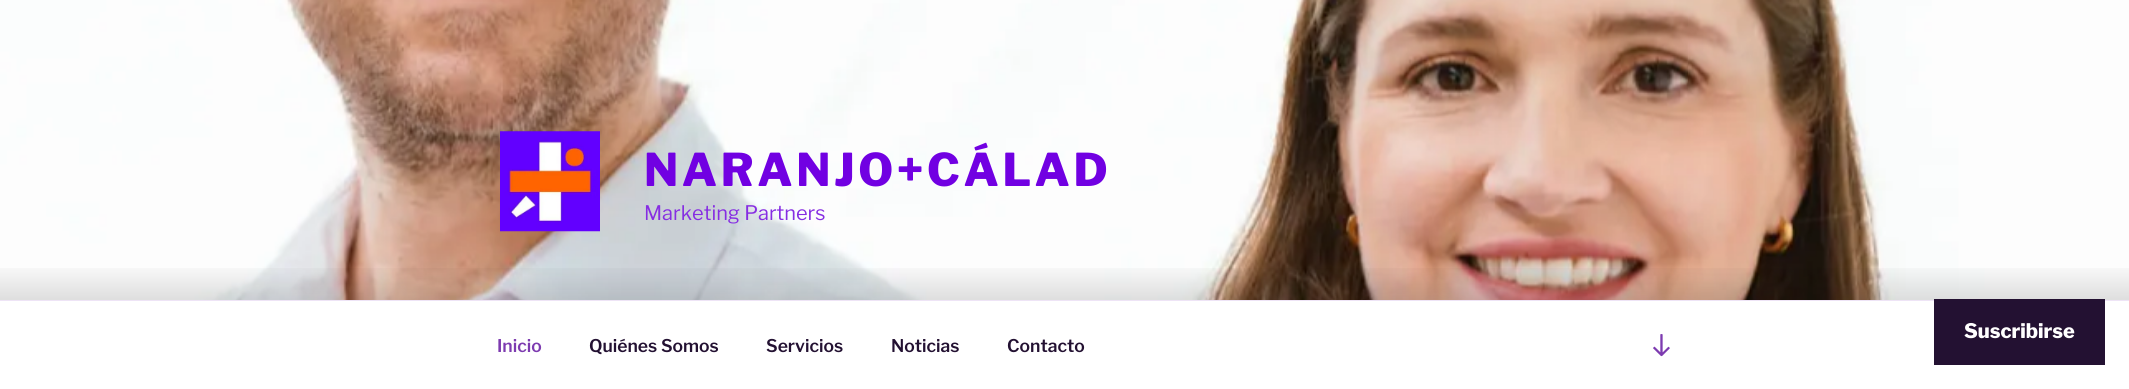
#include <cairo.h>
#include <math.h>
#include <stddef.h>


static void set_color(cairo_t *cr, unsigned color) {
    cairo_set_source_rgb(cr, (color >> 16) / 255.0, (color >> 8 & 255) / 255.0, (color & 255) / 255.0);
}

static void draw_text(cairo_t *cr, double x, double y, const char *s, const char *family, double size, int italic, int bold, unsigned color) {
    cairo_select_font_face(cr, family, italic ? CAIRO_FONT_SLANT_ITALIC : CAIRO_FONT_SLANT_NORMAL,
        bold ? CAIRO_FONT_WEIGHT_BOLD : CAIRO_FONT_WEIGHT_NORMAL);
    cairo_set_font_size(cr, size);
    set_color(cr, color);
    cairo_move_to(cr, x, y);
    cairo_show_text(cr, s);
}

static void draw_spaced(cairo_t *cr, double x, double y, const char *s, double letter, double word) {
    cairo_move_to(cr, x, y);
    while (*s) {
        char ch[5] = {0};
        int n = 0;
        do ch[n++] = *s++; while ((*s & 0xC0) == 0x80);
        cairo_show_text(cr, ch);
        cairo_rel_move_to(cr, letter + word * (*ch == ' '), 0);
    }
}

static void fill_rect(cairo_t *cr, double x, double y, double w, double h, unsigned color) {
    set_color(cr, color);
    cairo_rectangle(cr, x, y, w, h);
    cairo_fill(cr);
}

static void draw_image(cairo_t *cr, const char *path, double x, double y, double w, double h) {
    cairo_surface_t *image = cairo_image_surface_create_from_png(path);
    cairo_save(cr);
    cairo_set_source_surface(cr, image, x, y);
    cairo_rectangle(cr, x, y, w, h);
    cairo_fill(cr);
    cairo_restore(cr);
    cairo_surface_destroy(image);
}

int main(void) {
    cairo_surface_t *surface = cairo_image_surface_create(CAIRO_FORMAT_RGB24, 2129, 389);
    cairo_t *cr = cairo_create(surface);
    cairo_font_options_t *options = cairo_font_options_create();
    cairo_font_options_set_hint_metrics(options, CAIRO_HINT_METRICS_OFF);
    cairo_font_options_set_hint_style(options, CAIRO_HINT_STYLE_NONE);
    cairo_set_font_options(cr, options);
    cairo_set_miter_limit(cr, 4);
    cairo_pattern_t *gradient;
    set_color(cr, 0xFFFFFF);
    cairo_paint(cr);
    draw_image(cr, "assets/img1.png", 0, 0, 2129, 300);
    gradient = cairo_pattern_create_linear(1065, 261, 1065, 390);
    cairo_pattern_add_color_stop_rgba(gradient, 0, 0, 0, 0, 0);
    cairo_pattern_add_color_stop_rgba(gradient, 0.75, 0, 0, 0, 0.3);
    cairo_pattern_add_color_stop_rgba(gradient, 1, 0, 0, 0, 0.3);
    cairo_set_source(cr, gradient);
    cairo_pattern_destroy(gradient);
    cairo_rectangle(cr, 0, 268, 2129, 32);
    cairo_fill(cr);
    draw_image(cr, "assets/img2.png", 500, 131, 100, 101);
    cairo_select_font_face(cr, "Libre Franklin Thin", CAIRO_FONT_SLANT_NORMAL, CAIRO_FONT_WEIGHT_NORMAL);
    cairo_set_font_size(cr, 45);
    set_color(cr, 0x7100E2);
    draw_spaced(cr, 644, 186, "NARANJO+CÁLAD", 3.6, 0);
    draw_text(cr, 644, 220, "Marketing Partners", "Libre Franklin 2 Thin", 20, 0, 0, 0x862DE2);
    fill_rect(cr, 0, 300, 2129, 1, 0xEEE4F6);
    draw_text(cr, 497, 352, "Inicio", "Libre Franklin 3 Thin", 17.5, 0, 0, 0x7D3BB0);
    draw_text(cr, 589, 352, "Quiénes Somos", "Libre Franklin 3 Thin", 17.5, 0, 0, 0x231132);
    draw_text(cr, 766, 352, "Servicios", "Libre Franklin 3 Thin", 17.5, 0, 0, 0x231132);
    draw_text(cr, 891, 352, "Noticias", "Libre Franklin 3 Thin", 17.5, 0, 0, 0x231132);
    draw_text(cr, 1007, 352, "Contacto", "Libre Franklin 3 Thin", 17.5, 0, 0, 0x231132);
    draw_image(cr, "assets/img3.png", 1653, 334, 17, 23);
    fill_rect(cr, 1934, 299, 171, 66, 0x231132);
    draw_text(cr, 1964, 338, "Suscribirse", "Libre Franklin Thin", 20, 0, 0, 0xFFFFFF);
    cairo_surface_write_to_png(surface, "output.png");
    cairo_font_options_destroy(options);
    cairo_destroy(cr);
    cairo_surface_destroy(surface);
    return 0;
}
